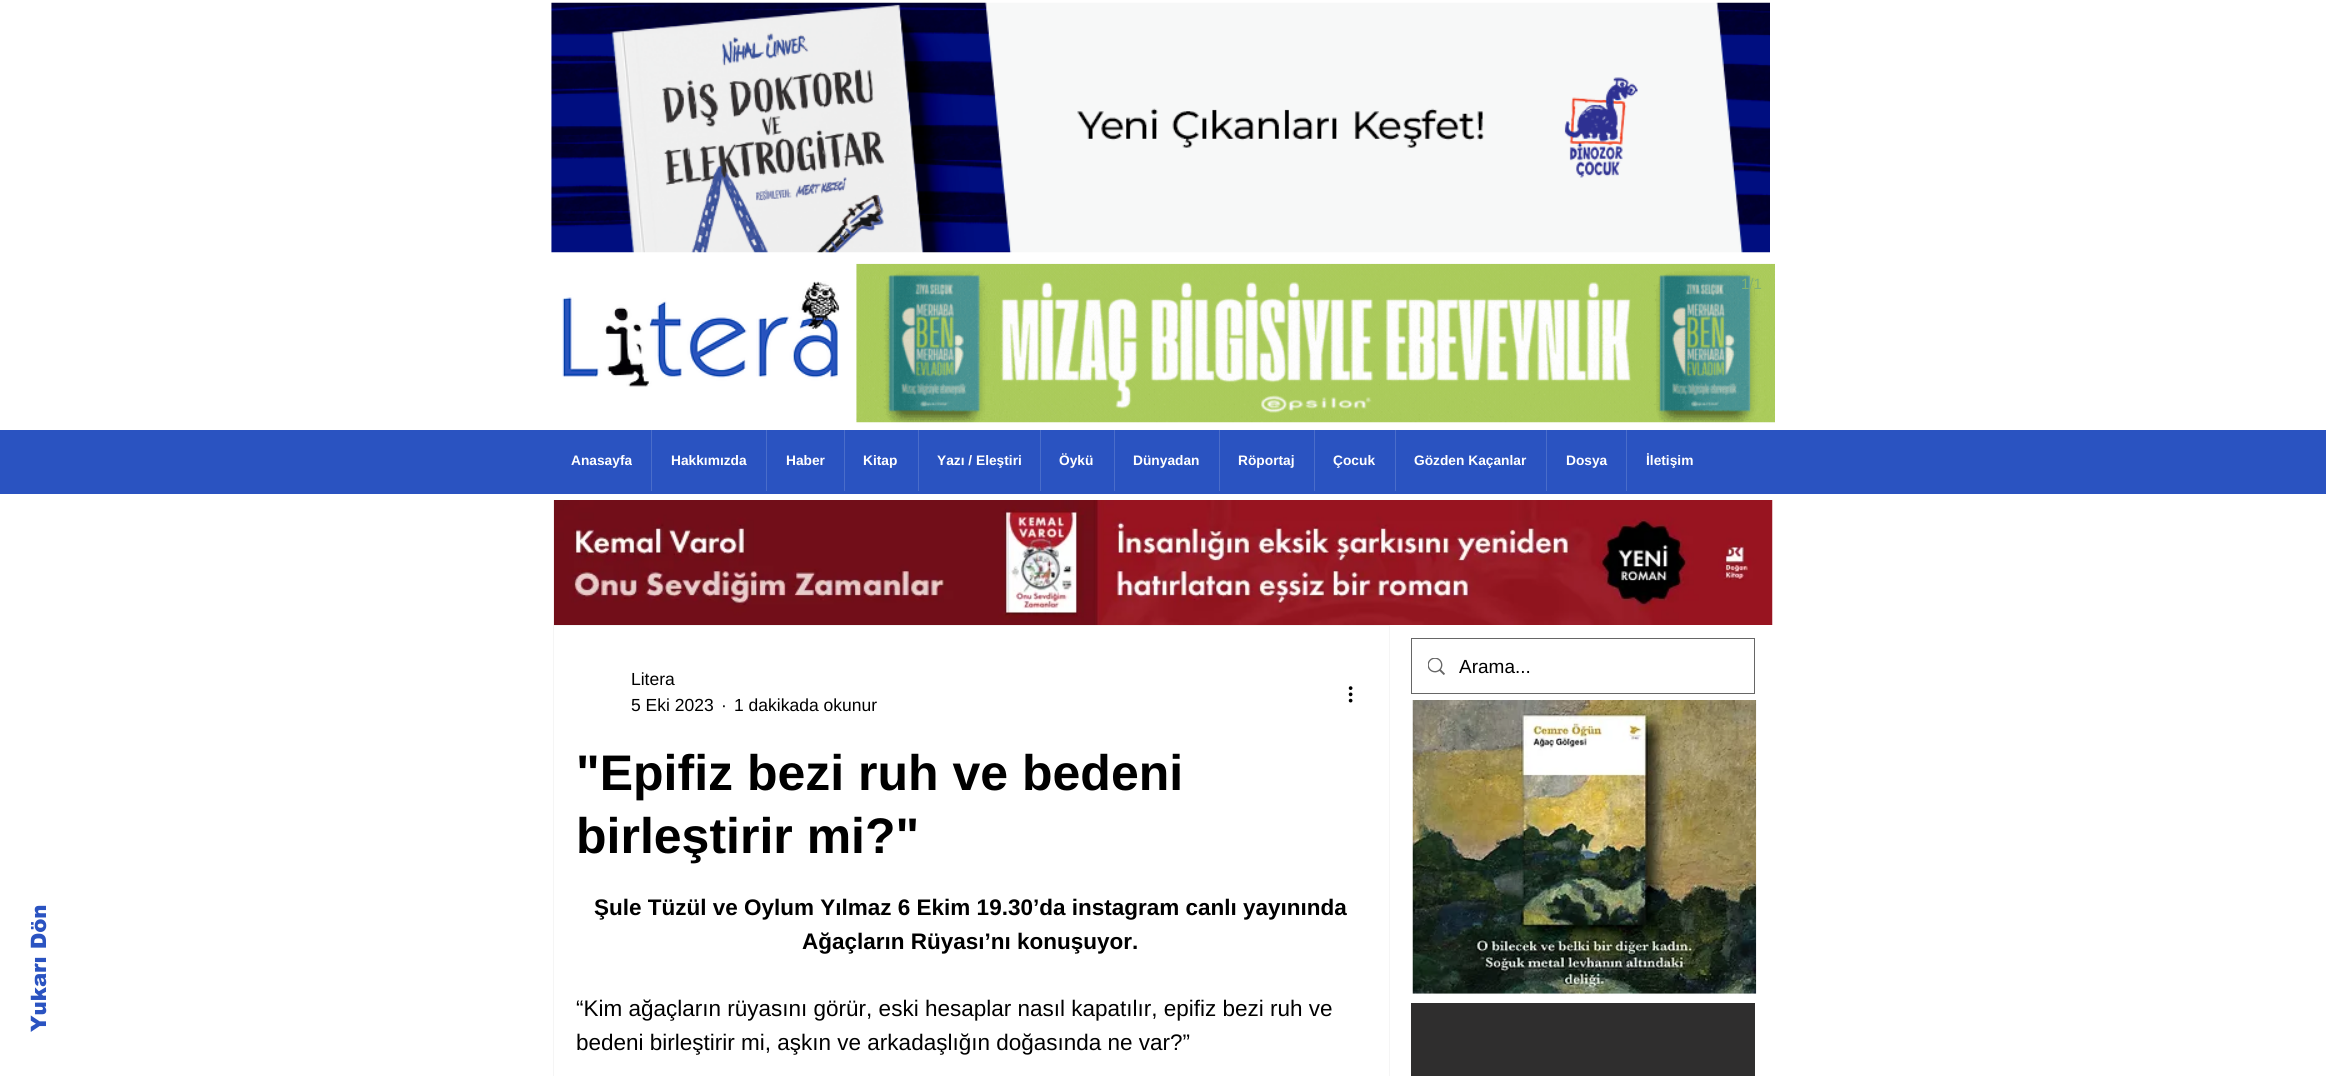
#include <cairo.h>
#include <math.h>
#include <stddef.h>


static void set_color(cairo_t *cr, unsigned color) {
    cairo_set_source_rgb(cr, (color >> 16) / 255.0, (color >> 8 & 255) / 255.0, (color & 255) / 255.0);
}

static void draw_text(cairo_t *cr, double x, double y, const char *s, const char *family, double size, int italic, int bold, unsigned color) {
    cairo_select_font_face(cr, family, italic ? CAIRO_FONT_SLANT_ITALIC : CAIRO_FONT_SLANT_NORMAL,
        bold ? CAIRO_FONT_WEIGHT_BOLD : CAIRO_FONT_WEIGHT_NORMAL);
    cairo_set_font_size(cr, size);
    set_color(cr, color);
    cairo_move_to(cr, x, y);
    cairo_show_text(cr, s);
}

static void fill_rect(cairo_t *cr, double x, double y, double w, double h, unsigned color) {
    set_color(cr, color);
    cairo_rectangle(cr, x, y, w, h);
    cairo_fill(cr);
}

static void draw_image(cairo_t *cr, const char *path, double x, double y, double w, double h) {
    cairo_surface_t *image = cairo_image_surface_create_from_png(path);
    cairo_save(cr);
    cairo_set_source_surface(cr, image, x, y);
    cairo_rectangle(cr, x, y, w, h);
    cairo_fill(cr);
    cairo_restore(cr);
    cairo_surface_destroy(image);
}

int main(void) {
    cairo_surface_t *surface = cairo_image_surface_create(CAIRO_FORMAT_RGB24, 2326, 1076);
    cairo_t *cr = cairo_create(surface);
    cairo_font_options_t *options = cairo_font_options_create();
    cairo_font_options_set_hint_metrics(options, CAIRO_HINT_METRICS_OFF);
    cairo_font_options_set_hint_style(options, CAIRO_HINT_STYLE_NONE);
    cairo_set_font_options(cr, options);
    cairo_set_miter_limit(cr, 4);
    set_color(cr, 0xFFFFFF);
    cairo_paint(cr);
    draw_image(cr, "assets/img1.png", 551, 2, 1219, 251);
    draw_image(cr, "assets/img2.png", 562, 281, 278, 106);
    draw_image(cr, "assets/img3.png", 856, 263, 919, 160);
    draw_text(cr, 1741, 289, "1/1", "Liberation Sans", 15, 0, 0, 0x7FB173);
    fill_rect(cr, 0, 430, 2326, 64, 0x2A53C1);
    draw_text(cr, 571, 465, "Anasayfa", "Liberation Sans", 13.75, 0, 1, 0xFFFFFF);
    fill_rect(cr, 651, 430, 1, 61, 0x4A6DCA);
    draw_text(cr, 671, 465, "Hakkımızda", "Liberation Sans", 13.75, 0, 1, 0xFFFFFF);
    fill_rect(cr, 766, 430, 1, 61, 0x4A6DCA);
    draw_text(cr, 786, 465, "Haber", "Liberation Sans", 13.75, 0, 1, 0xFFFFFF);
    fill_rect(cr, 844, 430, 1, 61, 0x4A6DCA);
    draw_text(cr, 863, 465, "Kitap", "Liberation Sans", 13.75, 0, 1, 0xFFFFFF);
    fill_rect(cr, 918, 430, 1, 61, 0x4A6DCA);
    draw_text(cr, 937, 465, "Yazı / Eleştiri", "Liberation Sans", 13.75, 0, 1, 0xFFFFFF);
    fill_rect(cr, 1040, 430, 1, 61, 0x4A6DCA);
    draw_text(cr, 1059, 465, "Öykü", "Liberation Sans", 13.75, 0, 1, 0xFFFFFF);
    fill_rect(cr, 1114, 430, 1, 61, 0x4A6DCA);
    draw_text(cr, 1133, 465, "Dünyadan", "Liberation Sans", 13.75, 0, 1, 0xFFFFFF);
    fill_rect(cr, 1219, 430, 1, 61, 0x4A6DCA);
    draw_text(cr, 1238, 465, "Röportaj", "Liberation Sans", 13.75, 0, 1, 0xFFFFFF);
    fill_rect(cr, 1314, 430, 1, 61, 0x4A6DCA);
    draw_text(cr, 1333, 465, "Çocuk", "Liberation Sans", 13.75, 0, 1, 0xFFFFFF);
    fill_rect(cr, 1395, 430, 1, 61, 0x4A6DCA);
    draw_text(cr, 1414, 465, "Gözden Kaçanlar", "Liberation Sans", 13.75, 0, 1, 0xFFFFFF);
    fill_rect(cr, 1546, 430, 1, 61, 0x4A6DCA);
    draw_text(cr, 1566, 465, "Dosya", "Liberation Sans", 13.75, 0, 1, 0xFFFFFF);
    fill_rect(cr, 1626, 430, 1, 61, 0x4A6DCA);
    draw_text(cr, 1646, 465, "İletişim", "Liberation Sans", 13.75, 0, 1, 0xFFFFFF);
    draw_image(cr, "assets/img4.png", 553, 500, 1220, 125);
    cairo_rectangle(cr, 1411.5, 638.5, 343, 55);
    set_color(cr, 0x666666);
    cairo_set_line_width(cr, 1);
    cairo_stroke(cr);
    draw_image(cr, "assets/img5.png", 1428, 658, 17, 17);
    draw_text(cr, 1459, 673, "Arama...", "Liberation Sans", 19, 0, 0, 0x000000);
    draw_image(cr, "assets/img6.png", 1412, 700, 345, 294);
    fill_rect(cr, 1411, 1003, 344, 73, 0x2F2E2E);
    cairo_save(cr);
    cairo_translate(cr, 46, 1032);
    cairo_rotate(cr, -90 * M_PI / 180);
    draw_text(cr, 0, 0, "Yukarı Dön", "arial Black", 21.25, 0, 0, 0x2A53C1);
    cairo_restore(cr);
    cairo_rectangle(cr, 553.5, 625.5, 836, 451);
    set_color(cr, 0xF5F5F5);
    cairo_stroke(cr);
    draw_text(cr, 631, 685, "Litera", "Liberation Sans", 17.5, 0, 0, 0x000000);
    draw_text(cr, 631, 711, "5 Eki 2023", "Liberation Sans", 17.5, 0, 0, 0x000000);
    draw_text(cr, 721, 711, "·", "Liberation Sans", 17.5, 0, 0, 0x000000);
    draw_text(cr, 734, 711, "1 dakikada okunur", "Liberation Sans", 17.5, 0, 0, 0x000000);
    draw_image(cr, "assets/img7.png", 1348, 686, 5, 17);
    draw_text(cr, 576, 790, "\"Epifiz bezi ruh ve bedeni", "Liberation Sans", 50, 0, 1, 0x000000);
    draw_text(cr, 576, 853, "birleştirir mi?\"", "Liberation Sans", 50, 0, 1, 0x000000);
    draw_text(cr, 594, 915, "Şule Tüzül ve Oylum Yılmaz 6 Ekim 19.30’da instagram canlı yayınında", "Liberation Sans", 22.5, 0, 1, 0x000000);
    draw_text(cr, 802, 949, "Ağaçların Rüyası’nı konuşuyor.", "Liberation Sans", 22.5, 0, 1, 0x000000);
    draw_text(cr, 576, 1016, "“Kim ağaçların rüyasını görür, eski hesaplar nasıl kapatılır, epifiz bezi ruh ve", "Liberation Sans", 22.5, 0, 0, 0x000000);
    draw_text(cr, 576, 1050, "bedeni birleştirir mi, aşkın ve arkadaşlığın doğasında ne var?”", "Liberation Sans", 22.5, 0, 0, 0x000000);
    cairo_surface_write_to_png(surface, "output.png");
    cairo_font_options_destroy(options);
    cairo_destroy(cr);
    cairo_surface_destroy(surface);
    return 0;
}
